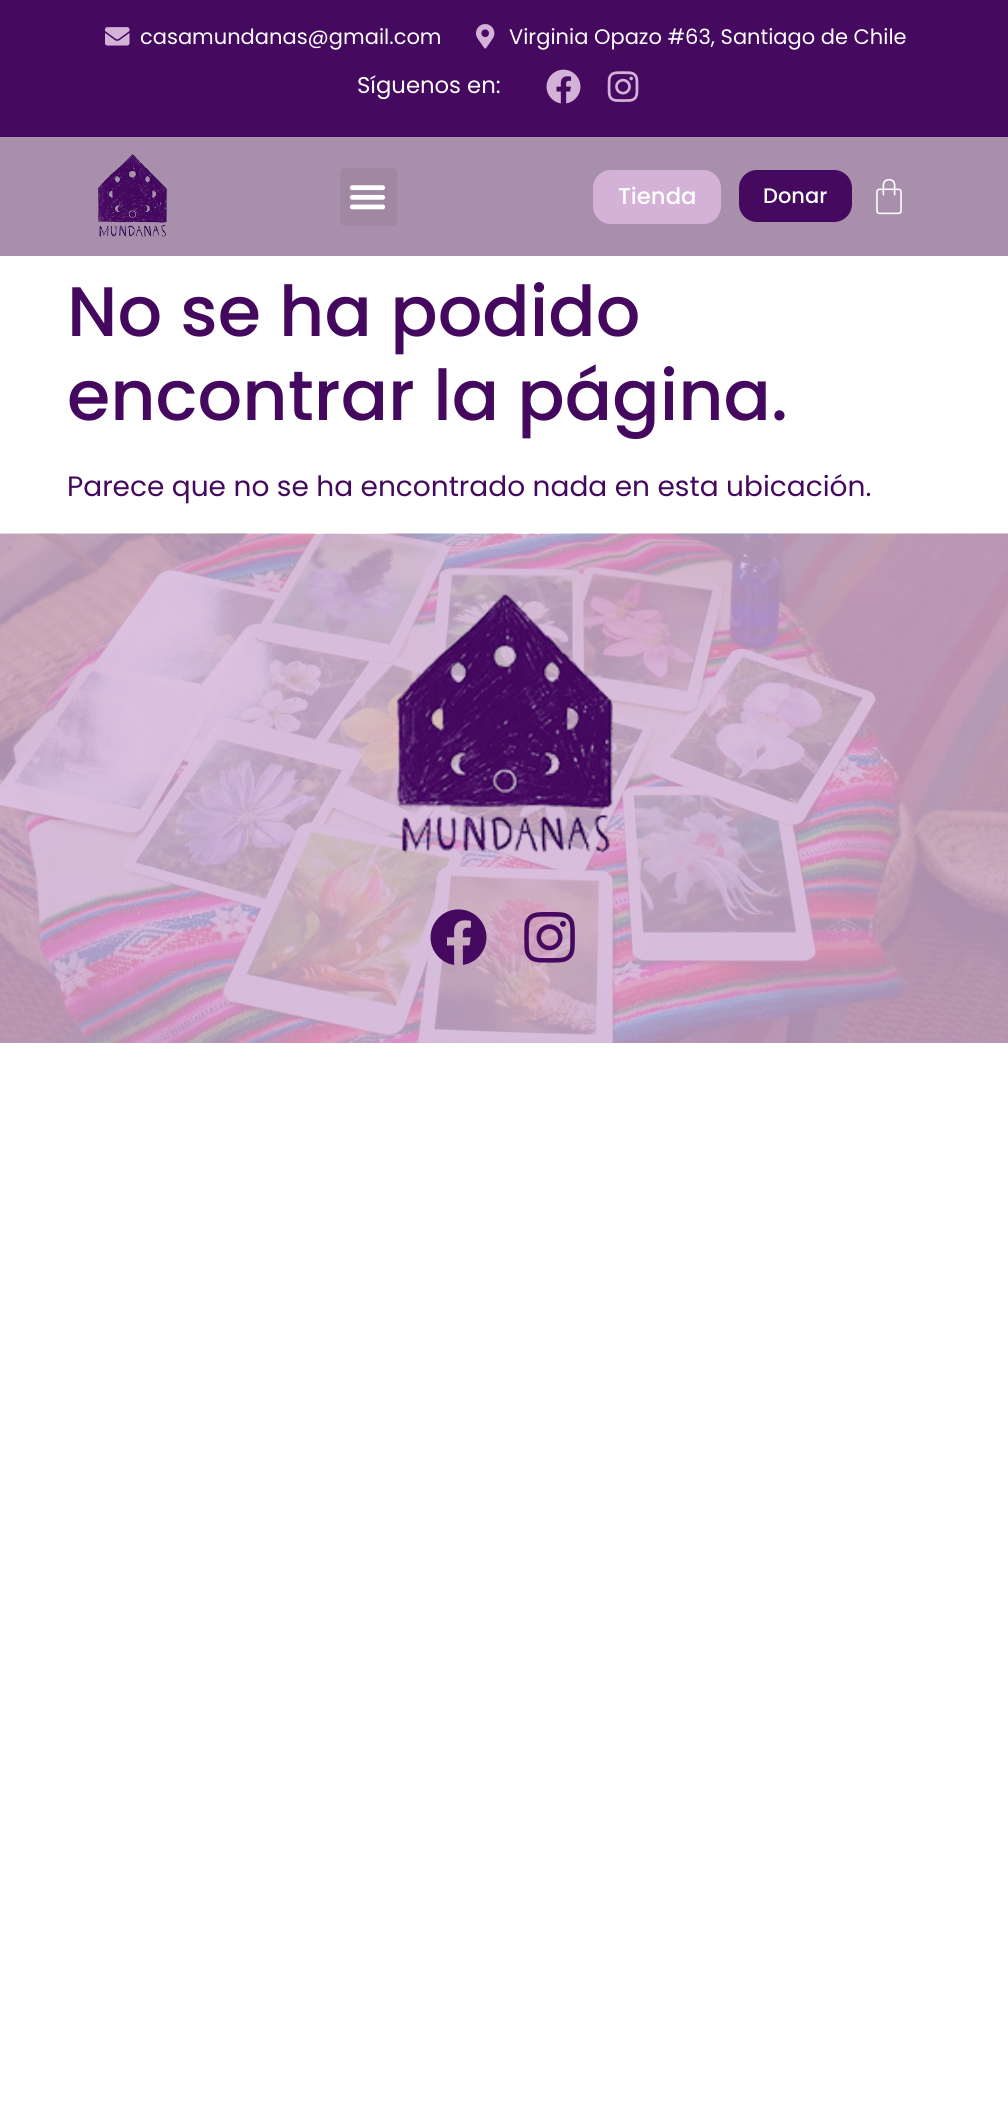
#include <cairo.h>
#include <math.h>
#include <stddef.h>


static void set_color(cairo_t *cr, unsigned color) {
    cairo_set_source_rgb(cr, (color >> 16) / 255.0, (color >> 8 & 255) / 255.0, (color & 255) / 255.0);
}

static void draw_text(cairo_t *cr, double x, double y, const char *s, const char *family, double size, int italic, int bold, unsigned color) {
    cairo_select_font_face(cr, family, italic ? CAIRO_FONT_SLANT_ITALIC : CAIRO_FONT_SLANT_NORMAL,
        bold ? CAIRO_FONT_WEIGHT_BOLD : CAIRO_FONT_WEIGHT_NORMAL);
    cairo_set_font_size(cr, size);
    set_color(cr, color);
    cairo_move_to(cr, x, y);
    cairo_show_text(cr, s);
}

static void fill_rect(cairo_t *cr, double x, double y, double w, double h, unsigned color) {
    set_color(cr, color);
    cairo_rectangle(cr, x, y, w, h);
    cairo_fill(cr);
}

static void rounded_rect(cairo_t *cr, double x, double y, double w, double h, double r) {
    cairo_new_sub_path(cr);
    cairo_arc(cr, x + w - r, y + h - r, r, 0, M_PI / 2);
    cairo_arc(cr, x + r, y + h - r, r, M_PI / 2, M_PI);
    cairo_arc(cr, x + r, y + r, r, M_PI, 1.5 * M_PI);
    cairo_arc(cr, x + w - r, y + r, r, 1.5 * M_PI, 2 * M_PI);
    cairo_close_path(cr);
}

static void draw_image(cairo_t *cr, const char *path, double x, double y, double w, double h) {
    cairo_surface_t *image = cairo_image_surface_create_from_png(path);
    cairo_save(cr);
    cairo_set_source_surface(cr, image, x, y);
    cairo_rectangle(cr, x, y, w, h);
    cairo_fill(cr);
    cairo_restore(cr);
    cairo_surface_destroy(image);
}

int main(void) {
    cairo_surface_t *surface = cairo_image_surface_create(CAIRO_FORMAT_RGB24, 1008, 2101);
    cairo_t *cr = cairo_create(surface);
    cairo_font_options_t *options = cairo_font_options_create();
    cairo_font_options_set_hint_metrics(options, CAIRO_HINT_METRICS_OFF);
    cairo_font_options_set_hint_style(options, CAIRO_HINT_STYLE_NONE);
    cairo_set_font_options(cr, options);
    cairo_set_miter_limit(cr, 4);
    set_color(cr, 0xFFFFFF);
    cairo_paint(cr);
    fill_rect(cr, 0, 0, 1008, 137, 0x45095F);
    draw_image(cr, "assets/img1.png", 105, 27, 25, 19);
    draw_text(cr, 140, 44, "casamundanas@gmail.com", "Poppins", 21, 0, 0, 0xFFFFFF);
    draw_image(cr, "assets/img2.png", 476, 24, 19, 25);
    draw_text(cr, 509, 44, "Virginia Opazo #63, Santiago de Chile", "Poppins", 21, 0, 0, 0xFFFFFF);
    draw_text(cr, 357, 93, "Síguenos en:", "Poppins", 22.75, 0, 0, 0xFFFFFF);
    draw_image(cr, "assets/img3.png", 546, 69, 35, 35);
    draw_image(cr, "assets/img4.png", 607, 71, 32, 31);
    fill_rect(cr, 0, 137, 1008, 119, 0xA88FAC);
    draw_image(cr, "assets/img5.png", 97, 154, 70, 83);
    set_color(cr, 0xA088A3);
    rounded_rect(cr, 340, 168, 57, 58, 5);
    cairo_fill(cr);
    draw_image(cr, "assets/img6.png", 349, 185, 37, 25);
    set_color(cr, 0xD4B2D8);
    rounded_rect(cr, 593, 170, 128, 54, 18);
    cairo_fill(cr);
    draw_text(cr, 618, 204, "Tienda", "Poppins Medium", 22.75, 0, 0, 0xFFFFFF);
    set_color(cr, 0x45095F);
    rounded_rect(cr, 739, 170, 113, 52, 18);
    cairo_fill(cr);
    draw_text(cr, 763, 203, "Donar", "Poppins Medium", 21, 0, 0, 0xFFFFFF);
    draw_image(cr, "assets/img7.png", 876, 178, 26, 37);
    draw_text(cr, 67, 336, "No se ha podido", "Poppins Medium", 70, 0, 0, 0x44085E);
    draw_text(cr, 67, 420, "encontrar la página.", "Poppins Medium", 70, 0, 0, 0x44085E);
    draw_text(cr, 67, 496, "Parece que no se ha encontrado nada en esta ubicación.", "Poppins", 28, 0, 0, 0x44085E);
    draw_image(cr, "assets/img8.png", 0, 533, 1008, 510);
    draw_image(cr, "assets/img9.png", 396, 594, 217, 259);
    draw_image(cr, "assets/img10.png", 430, 909, 57, 56);
    draw_image(cr, "assets/img11.png", 524, 911, 51, 52);
    cairo_surface_write_to_png(surface, "output.png");
    cairo_font_options_destroy(options);
    cairo_destroy(cr);
    cairo_surface_destroy(surface);
    return 0;
}
